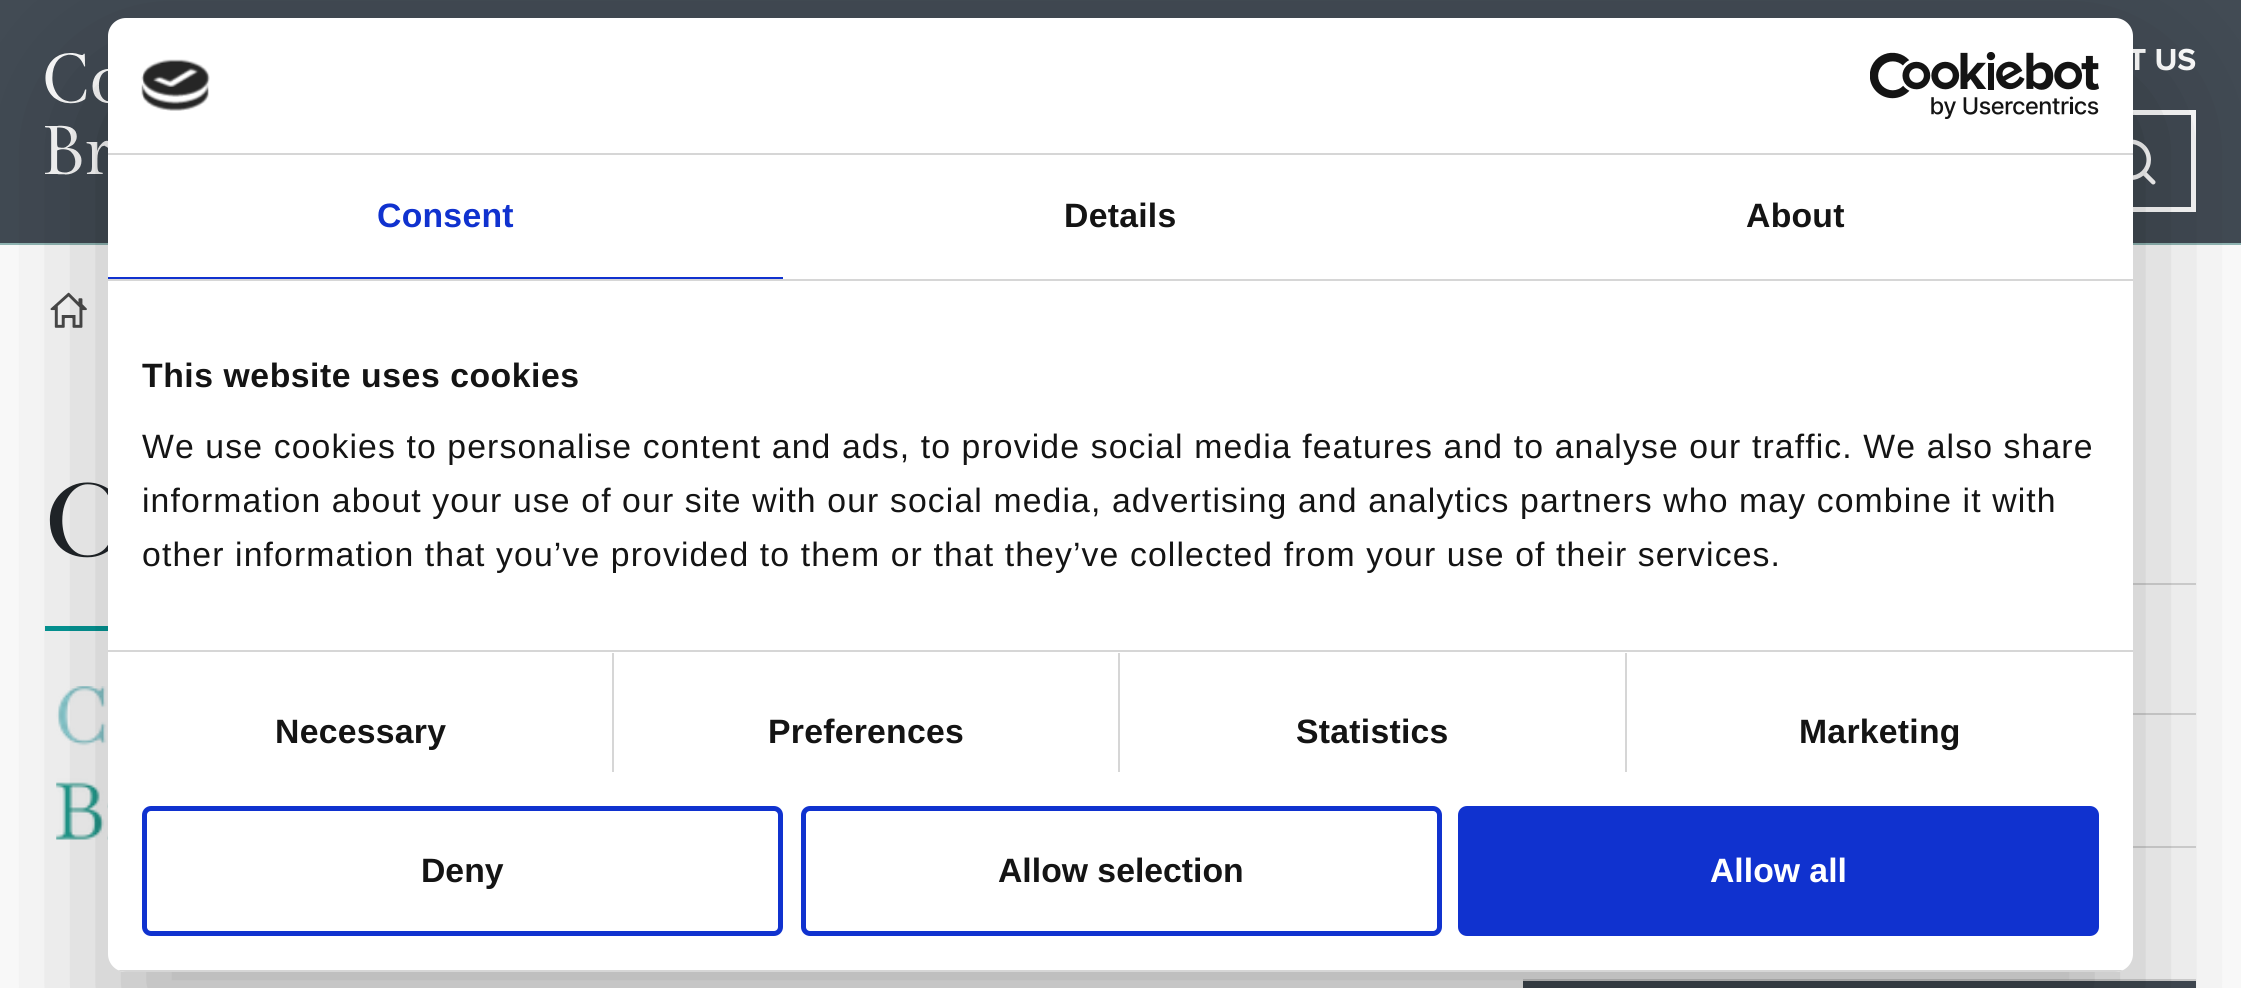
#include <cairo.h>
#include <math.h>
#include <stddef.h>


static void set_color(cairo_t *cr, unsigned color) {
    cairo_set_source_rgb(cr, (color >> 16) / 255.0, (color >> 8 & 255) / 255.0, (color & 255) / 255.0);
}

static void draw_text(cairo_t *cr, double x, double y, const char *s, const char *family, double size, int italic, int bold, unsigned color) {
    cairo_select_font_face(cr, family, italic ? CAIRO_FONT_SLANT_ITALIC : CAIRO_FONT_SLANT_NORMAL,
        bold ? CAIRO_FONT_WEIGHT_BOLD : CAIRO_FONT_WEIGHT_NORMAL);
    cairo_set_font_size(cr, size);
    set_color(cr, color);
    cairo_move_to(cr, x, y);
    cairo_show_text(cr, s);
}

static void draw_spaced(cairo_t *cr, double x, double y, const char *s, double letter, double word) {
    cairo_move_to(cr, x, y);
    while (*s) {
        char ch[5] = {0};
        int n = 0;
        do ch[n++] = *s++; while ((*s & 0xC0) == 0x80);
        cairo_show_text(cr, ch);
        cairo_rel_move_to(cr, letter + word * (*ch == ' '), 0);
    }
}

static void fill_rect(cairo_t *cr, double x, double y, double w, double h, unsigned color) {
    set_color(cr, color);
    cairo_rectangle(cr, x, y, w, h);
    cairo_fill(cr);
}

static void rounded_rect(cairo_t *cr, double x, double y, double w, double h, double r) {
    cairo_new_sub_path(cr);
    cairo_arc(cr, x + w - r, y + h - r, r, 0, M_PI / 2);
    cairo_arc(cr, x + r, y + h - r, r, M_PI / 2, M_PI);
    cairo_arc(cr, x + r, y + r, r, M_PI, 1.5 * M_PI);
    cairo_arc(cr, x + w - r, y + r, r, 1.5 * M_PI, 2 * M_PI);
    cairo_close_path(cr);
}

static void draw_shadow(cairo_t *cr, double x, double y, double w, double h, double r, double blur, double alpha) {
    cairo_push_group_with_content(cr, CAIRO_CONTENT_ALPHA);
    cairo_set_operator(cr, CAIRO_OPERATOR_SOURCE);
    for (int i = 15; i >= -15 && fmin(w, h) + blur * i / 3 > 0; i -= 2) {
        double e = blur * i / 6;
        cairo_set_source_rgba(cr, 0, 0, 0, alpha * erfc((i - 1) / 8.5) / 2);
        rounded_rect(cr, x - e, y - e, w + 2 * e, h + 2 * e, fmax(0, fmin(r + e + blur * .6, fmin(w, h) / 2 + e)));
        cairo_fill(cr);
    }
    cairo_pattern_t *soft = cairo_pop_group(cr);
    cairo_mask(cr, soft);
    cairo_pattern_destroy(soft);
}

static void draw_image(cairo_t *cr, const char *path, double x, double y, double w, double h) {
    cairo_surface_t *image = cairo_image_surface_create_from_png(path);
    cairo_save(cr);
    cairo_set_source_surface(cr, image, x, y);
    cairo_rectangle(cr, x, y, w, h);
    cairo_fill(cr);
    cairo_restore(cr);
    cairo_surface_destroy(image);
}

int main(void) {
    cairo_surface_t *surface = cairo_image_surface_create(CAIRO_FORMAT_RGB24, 2241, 988);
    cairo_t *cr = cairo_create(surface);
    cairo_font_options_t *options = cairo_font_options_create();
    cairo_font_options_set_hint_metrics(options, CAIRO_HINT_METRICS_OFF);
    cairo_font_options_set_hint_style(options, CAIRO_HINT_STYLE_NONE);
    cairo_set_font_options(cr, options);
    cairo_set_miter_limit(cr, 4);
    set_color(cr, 0xFFFFFF);
    cairo_paint(cr);
    fill_rect(cr, 0, 0, 2241, 243, 0x424B54);
    fill_rect(cr, 0, 243, 2241, 2, 0x92B8B6);
    draw_image(cr, "assets/img1.png", 45, 53, 63, 122);
    draw_text(cr, 2128, 70, "T US", "Proxima Nova", 31.5, 0, 1, 0xFFFFFF);
    cairo_rectangle(cr, 2072.5, 112.5, 121, 97);
    cairo_set_line_width(cr, 5);
    cairo_stroke(cr);
    draw_image(cr, "assets/img2.png", 2133, 139, 23, 46);
    draw_image(cr, "assets/img3.png", 50, 292, 37, 36);
    draw_text(cr, 45, 556, "C", "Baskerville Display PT", 108, 0, 0, 0x21262A);
    fill_rect(cr, 45, 626, 68, 5, 0x049A99);
    draw_image(cr, "assets/img4.png", 56, 686, 52, 154);
    fill_rect(cr, 2133, 583, 63, 2, 0xD9D9D9);
    fill_rect(cr, 2133, 713, 63, 2, 0xD9D9D9);
    fill_rect(cr, 2133, 846, 63, 2, 0xD9D9D9);
    fill_rect(cr, 1523, 979, 673, 2, 0xD9D9D9);
    fill_rect(cr, 1523, 981, 673, 7, 0x424B54);
    set_color(cr, 0x000000);
    draw_shadow(cr, 108, 90, 2025, 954, 18, 76.5, 0.3);
    set_color(cr, 0xFFFFFF);
    rounded_rect(cr, 108, 18, 2025, 954, 18);
    cairo_fill(cr);
    fill_rect(cr, 108, 153, 2025, 2, 0xD6D6D6);
    draw_image(cr, "assets/img5.png", 141, 59, 69, 52);
    draw_image(cr, "assets/img6.png", 1870, 52, 229, 67);
    fill_rect(cr, 108, 279, 2025, 2, 0xD6D6D6);
    fill_rect(cr, 108, 277, 675, 2, 0x1032CF);
    cairo_select_font_face(cr, "Liberation Sans", CAIRO_FONT_SLANT_NORMAL, CAIRO_FONT_WEIGHT_BOLD);
    cairo_set_font_size(cr, 33.75);
    draw_spaced(cr, 377, 227, "Consent", 0.25, 0);
    set_color(cr, 0x141414);
    draw_spaced(cr, 1064, 227, "Details", 0.25, 0);
    draw_spaced(cr, 1746, 227, "About", 0.25, 0);
    fill_rect(cr, 108, 650, 2025, 2, 0xD6D6D6);
    set_color(cr, 0x141414);
    draw_spaced(cr, 142, 387, "This website uses cookies", 0.55, 0);
    cairo_select_font_face(cr, "Liberation Sans", CAIRO_FONT_SLANT_NORMAL, CAIRO_FONT_WEIGHT_NORMAL);
    draw_spaced(cr, 142, 458, "We use cookies to personalise content and ads, to provide social media features and to analyse our traffic. We also share", 1.12, 0);
    draw_spaced(cr, 142, 512, "information about your use of our site with our social media, advertising and analytics partners who may combine it with", 1.12, 0);
    draw_spaced(cr, 142, 566, "other information that you’ve provided to them or that they’ve collected from your use of their services.", 1.12, 0);
    fill_rect(cr, 612, 653, 2, 119, 0xD6D6D6);
    cairo_select_font_face(cr, "Liberation Sans", CAIRO_FONT_SLANT_NORMAL, CAIRO_FONT_WEIGHT_BOLD);
    set_color(cr, 0x141414);
    draw_spaced(cr, 275, 743, "Necessary", 0.25, 0);
    fill_rect(cr, 1118, 653, 2, 119, 0xD6D6D6);
    set_color(cr, 0x141414);
    draw_spaced(cr, 768, 743, "Preferences", 0.25, 0);
    fill_rect(cr, 1625, 653, 2, 119, 0xD6D6D6);
    set_color(cr, 0x141414);
    draw_spaced(cr, 1296, 743, "Statistics", 0.25, 0);
    draw_spaced(cr, 1799, 743, "Marketing", 0.25, 0);
    cairo_save(cr);
    rounded_rect(cr, 108, 18, 2025, 954, 18);
    cairo_clip(cr);
    fill_rect(cr, 118, 970, 2005, 2, 0xD6D6D6);
    cairo_restore(cr);
    rounded_rect(cr, 144.5, 808.5, 636, 125, 6.5);
    set_color(cr, 0x1032CF);
    cairo_stroke(cr);
    draw_text(cr, 421, 882, "Deny", "Liberation Sans", 33.75, 0, 1, 0x141414);
    rounded_rect(cr, 803.5, 808.5, 636, 125, 6.5);
    set_color(cr, 0x1032CF);
    cairo_stroke(cr);
    draw_text(cr, 998, 882, "Allow selection", "Liberation Sans", 33.75, 0, 1, 0x141414);
    set_color(cr, 0x1032CF);
    rounded_rect(cr, 1460.5, 808.5, 636, 125, 6.5);
    cairo_fill_preserve(cr);
    cairo_stroke(cr);
    draw_text(cr, 1710, 882, "Allow all", "Liberation Sans", 33.75, 0, 1, 0xFFFFFF);
    cairo_surface_write_to_png(surface, "output.png");
    cairo_font_options_destroy(options);
    cairo_destroy(cr);
    cairo_surface_destroy(surface);
    return 0;
}
